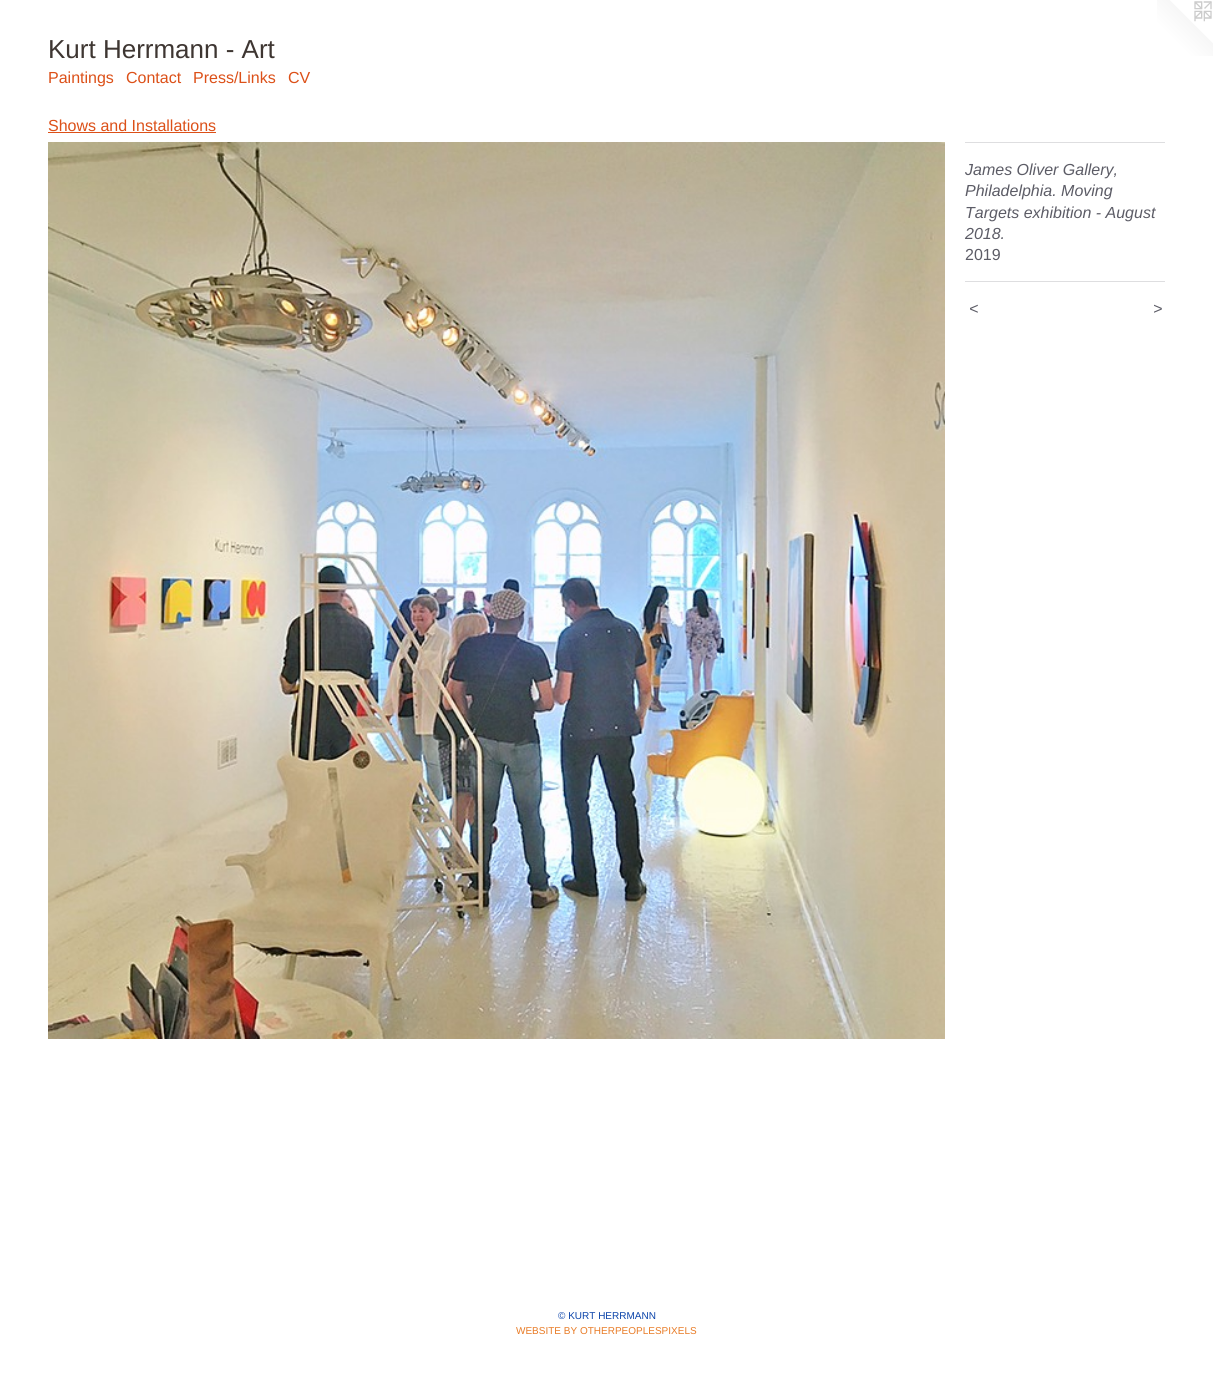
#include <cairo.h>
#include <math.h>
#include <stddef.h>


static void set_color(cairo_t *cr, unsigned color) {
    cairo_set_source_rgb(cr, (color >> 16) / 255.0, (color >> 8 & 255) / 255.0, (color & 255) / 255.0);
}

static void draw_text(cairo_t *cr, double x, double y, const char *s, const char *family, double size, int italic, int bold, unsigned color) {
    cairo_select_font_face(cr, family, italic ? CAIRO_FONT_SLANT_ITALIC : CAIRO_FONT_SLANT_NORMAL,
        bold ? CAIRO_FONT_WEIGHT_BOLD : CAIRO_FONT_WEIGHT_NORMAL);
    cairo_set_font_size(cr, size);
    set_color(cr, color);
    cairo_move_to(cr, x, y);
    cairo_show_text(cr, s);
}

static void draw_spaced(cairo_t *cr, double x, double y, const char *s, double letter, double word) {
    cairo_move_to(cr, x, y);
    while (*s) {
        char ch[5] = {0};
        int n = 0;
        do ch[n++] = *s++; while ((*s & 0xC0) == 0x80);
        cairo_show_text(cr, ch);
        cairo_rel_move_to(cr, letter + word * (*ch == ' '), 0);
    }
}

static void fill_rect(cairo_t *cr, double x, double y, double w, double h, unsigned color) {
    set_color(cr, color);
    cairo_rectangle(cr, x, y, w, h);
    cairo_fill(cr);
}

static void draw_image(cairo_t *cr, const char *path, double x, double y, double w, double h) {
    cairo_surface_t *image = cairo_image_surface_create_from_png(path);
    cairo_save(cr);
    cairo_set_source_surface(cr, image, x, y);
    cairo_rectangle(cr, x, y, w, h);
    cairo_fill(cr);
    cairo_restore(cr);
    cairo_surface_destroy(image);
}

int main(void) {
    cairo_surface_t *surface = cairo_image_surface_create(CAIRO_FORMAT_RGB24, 1213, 1392);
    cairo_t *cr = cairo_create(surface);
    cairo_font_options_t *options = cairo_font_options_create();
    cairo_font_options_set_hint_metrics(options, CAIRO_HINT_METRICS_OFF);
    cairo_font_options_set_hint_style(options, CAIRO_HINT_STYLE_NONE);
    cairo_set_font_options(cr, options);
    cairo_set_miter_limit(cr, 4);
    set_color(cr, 0xFFFFFF);
    cairo_paint(cr);
    draw_text(cr, 48, 58, "Kurt Herrmann - Art", "Arimo", 26, 0, 0, 0x3E3632);
    draw_image(cr, "assets/img1.png", 1157, 0, 56, 56);
    draw_text(cr, 48, 83, "Paintings", "Arimo", 16, 0, 0, 0xDC5018);
    draw_text(cr, 126, 83, "Contact", "Arimo", 16, 0, 0, 0xDC5018);
    draw_text(cr, 193, 83, "Press/Links", "Arimo", 16, 0, 0, 0xDC5018);
    draw_text(cr, 288, 83, "CV", "Arimo", 16, 0, 0, 0xDC5018);
    draw_text(cr, 48, 131, "Shows and Installations", "Arimo", 16, 0, 0, 0xDC5018);
    fill_rect(cr, 48, 132, 168, 1, 0xDC5018);
    draw_image(cr, "assets/img2.png", 48, 142, 897, 897);
    fill_rect(cr, 965, 142, 200, 1, 0xDEDEE0);
    draw_text(cr, 965, 175, "James Oliver Gallery,", "Liberation Sans", 16, 1, 0, 0x5C5C66);
    draw_text(cr, 965, 196, "Philadelphia. Moving", "Liberation Sans", 16, 1, 0, 0x5C5C66);
    draw_text(cr, 965, 218, "Targets exhibition - August", "Liberation Sans", 16, 1, 0, 0x5C5C66);
    draw_text(cr, 965, 239, "2018.", "Liberation Sans", 16, 1, 0, 0x5C5C66);
    draw_text(cr, 965, 260, "2019", "Liberation Sans", 16, 0, 0, 0x5C5C66);
    fill_rect(cr, 965, 281, 200, 1, 0xDEDEE0);
    cairo_select_font_face(cr, "Liberation Sans", CAIRO_FONT_SLANT_ITALIC, CAIRO_FONT_WEIGHT_NORMAL);
    set_color(cr, 0x5C5C66);
    draw_spaced(cr, 969, 314, "<", 1, 0);
    draw_spaced(cr, 1153, 314, ">", 1, 0);
    draw_text(cr, 558, 1319, "© KURT HERRMANN", "Liberation Sans", 10, 0, 0, 0x0A43A9);
    draw_text(cr, 516, 1334, "WEBSITE BY OTHERPEOPLESPIXELS", "Liberation Sans", 10, 0, 0, 0xE87B26);
    cairo_surface_write_to_png(surface, "output.png");
    cairo_font_options_destroy(options);
    cairo_destroy(cr);
    cairo_surface_destroy(surface);
    return 0;
}
